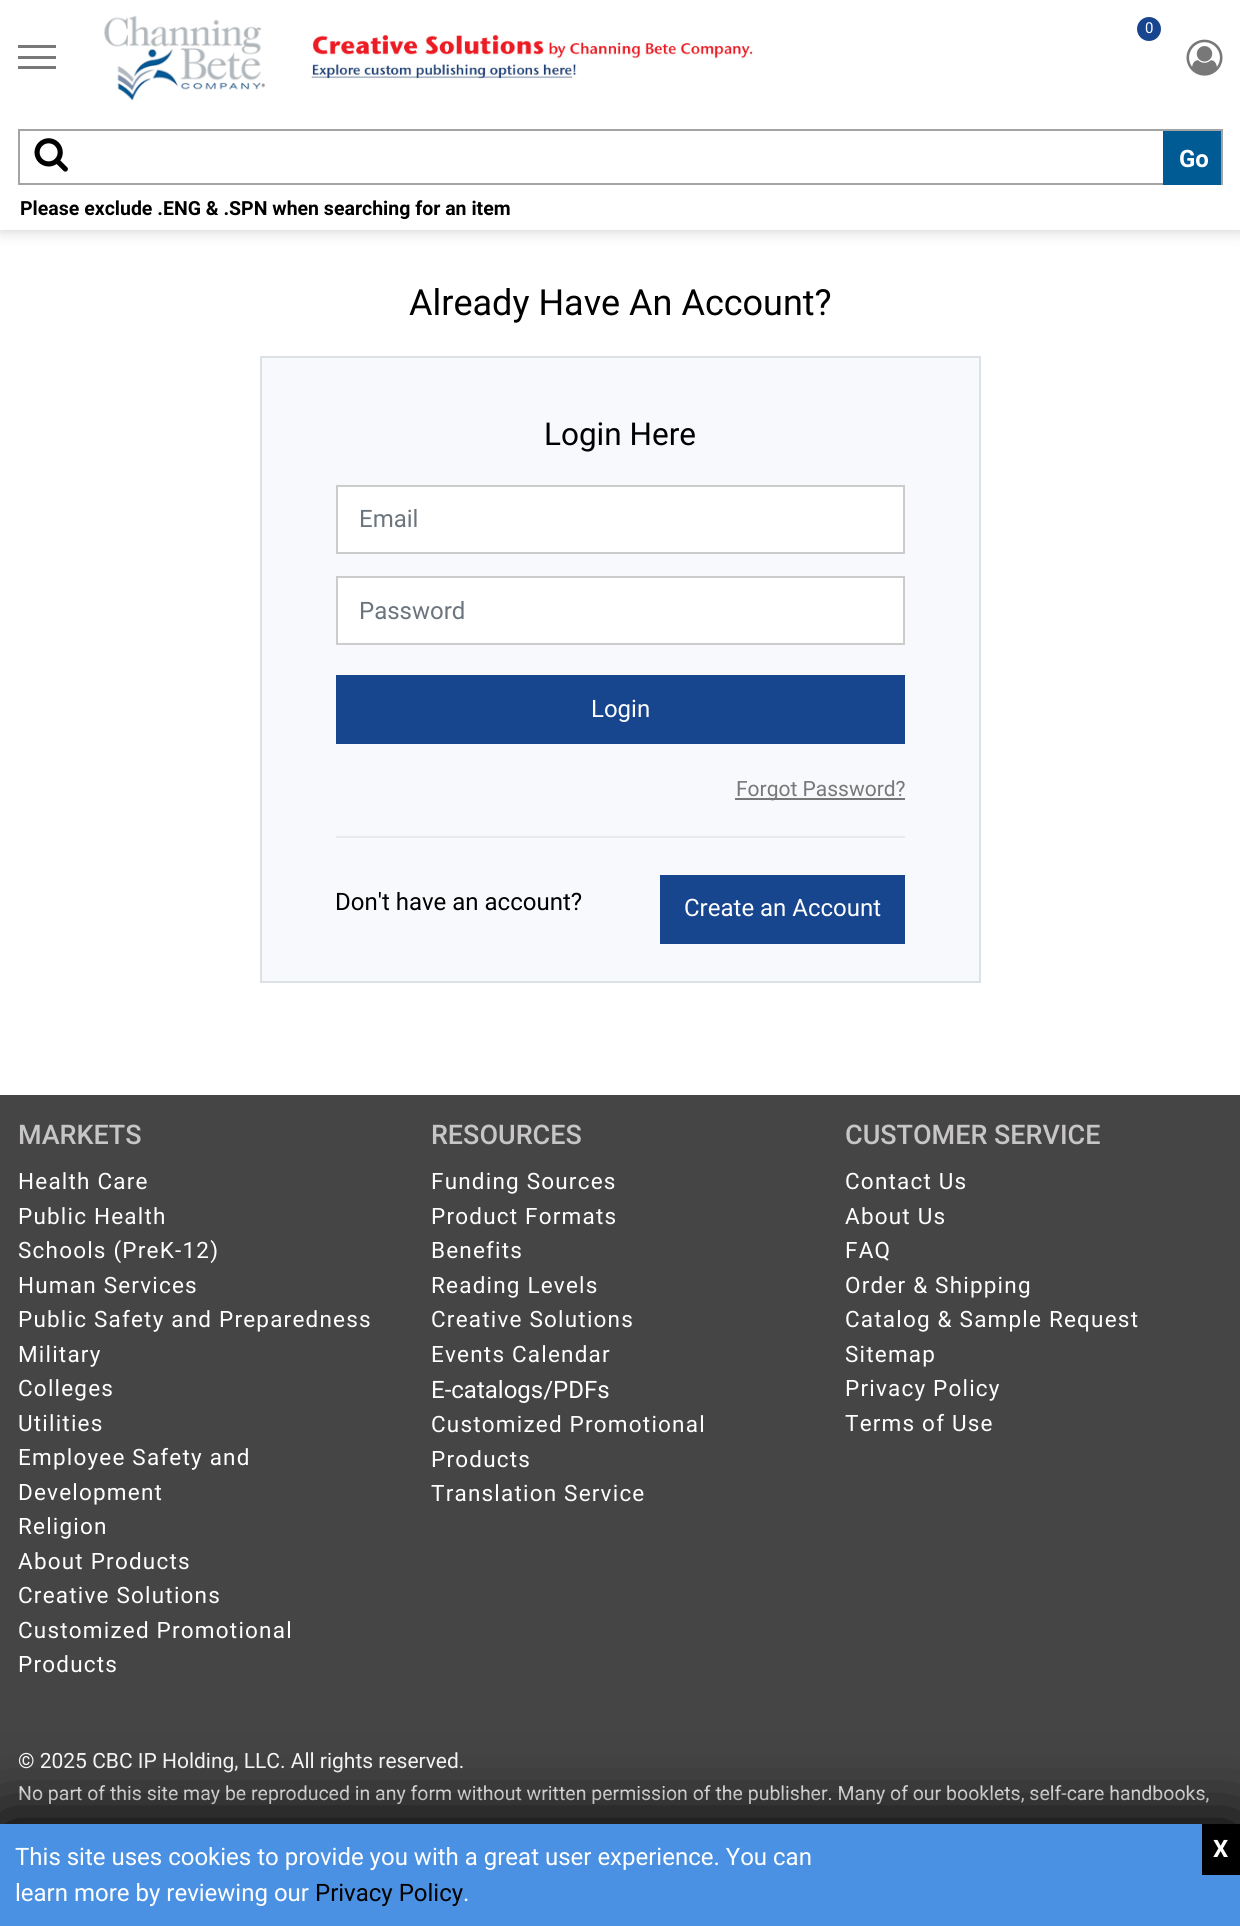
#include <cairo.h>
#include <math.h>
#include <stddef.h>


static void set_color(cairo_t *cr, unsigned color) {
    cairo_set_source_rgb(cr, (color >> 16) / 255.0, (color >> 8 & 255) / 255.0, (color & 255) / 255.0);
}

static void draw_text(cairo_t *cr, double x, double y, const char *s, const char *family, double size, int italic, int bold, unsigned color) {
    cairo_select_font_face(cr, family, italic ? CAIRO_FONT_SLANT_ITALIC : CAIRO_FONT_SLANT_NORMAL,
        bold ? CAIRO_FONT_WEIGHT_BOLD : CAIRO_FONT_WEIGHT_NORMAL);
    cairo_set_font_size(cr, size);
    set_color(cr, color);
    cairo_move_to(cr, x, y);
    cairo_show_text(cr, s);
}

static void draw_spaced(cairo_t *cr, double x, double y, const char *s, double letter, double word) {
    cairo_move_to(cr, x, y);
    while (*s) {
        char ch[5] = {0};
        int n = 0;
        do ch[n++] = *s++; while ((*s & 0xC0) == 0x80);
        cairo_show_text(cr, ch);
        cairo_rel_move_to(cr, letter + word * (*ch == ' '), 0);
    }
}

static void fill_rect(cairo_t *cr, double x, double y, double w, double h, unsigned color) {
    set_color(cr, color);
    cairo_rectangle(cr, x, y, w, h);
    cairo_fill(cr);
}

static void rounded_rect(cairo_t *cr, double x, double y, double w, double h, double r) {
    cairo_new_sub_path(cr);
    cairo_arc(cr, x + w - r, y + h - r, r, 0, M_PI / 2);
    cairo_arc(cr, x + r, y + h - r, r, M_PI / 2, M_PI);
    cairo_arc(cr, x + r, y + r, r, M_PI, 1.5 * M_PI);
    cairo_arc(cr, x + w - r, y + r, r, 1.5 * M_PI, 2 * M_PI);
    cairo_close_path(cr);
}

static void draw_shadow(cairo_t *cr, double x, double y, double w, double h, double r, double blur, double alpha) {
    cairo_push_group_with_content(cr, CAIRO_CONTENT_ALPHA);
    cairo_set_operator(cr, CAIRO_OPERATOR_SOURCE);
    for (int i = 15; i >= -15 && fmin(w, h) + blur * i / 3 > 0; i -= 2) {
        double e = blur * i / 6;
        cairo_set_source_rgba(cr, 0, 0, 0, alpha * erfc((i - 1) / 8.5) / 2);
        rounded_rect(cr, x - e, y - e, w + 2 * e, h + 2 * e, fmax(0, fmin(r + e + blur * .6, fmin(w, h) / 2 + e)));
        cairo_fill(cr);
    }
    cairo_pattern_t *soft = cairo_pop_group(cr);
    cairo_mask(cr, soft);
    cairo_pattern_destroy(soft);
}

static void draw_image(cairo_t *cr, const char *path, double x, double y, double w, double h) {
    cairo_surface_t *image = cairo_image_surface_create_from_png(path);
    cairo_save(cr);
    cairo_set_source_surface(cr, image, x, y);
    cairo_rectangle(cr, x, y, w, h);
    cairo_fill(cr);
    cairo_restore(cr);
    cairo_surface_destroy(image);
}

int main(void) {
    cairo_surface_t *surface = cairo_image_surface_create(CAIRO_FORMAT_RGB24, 1240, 1926);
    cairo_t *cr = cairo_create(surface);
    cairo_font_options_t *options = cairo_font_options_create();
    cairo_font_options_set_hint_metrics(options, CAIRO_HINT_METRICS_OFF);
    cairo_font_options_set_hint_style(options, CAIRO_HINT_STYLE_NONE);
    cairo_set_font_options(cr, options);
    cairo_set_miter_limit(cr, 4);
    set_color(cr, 0xFFFFFF);
    cairo_paint(cr);
    set_color(cr, 0xCCCCCC);
    draw_shadow(cr, 0, 0, 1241, 230, 0, 7.5, 1);
    fill_rect(cr, 0, 0, 1240, 230, 0xFFFFFF);
    draw_image(cr, "assets/img1.png", 104, 15, 161, 86);
    set_color(cr, 0x17468F);
    cairo_arc(cr, 1149, 29, 12, 0, 2 * M_PI);
    cairo_fill(cr);
    draw_text(cr, 1145, 33, "0", "Roboto", 15, 0, 0, 0xFFFFFF);
    draw_image(cr, "assets/img2.png", 1186, 39, 37, 37);
    fill_rect(cr, 18, 45, 38, 3, 0x787878);
    fill_rect(cr, 18, 56, 38, 3, 0x787878);
    fill_rect(cr, 18, 66, 38, 3, 0x787878);
    draw_image(cr, "assets/img3.png", 311, 34, 443, 45);
    cairo_rectangle(cr, 19, 130, 1203, 54);
    set_color(cr, 0xA4A4A4);
    cairo_stroke(cr);
    draw_image(cr, "assets/img4.png", 34, 138, 34, 34);
    fill_rect(cr, 1163, 131, 58, 54, 0x005A94);
    draw_text(cr, 1179, 167, "Go", "Roboto", 24, 0, 1, 0xFFFFFF);
    draw_text(cr, 20, 215, "Please exclude .ENG & .SPN when searching for an item", "Roboto", 19.5, 0, 1, 0x000000);
    draw_text(cr, 409, 315, "Already Have An Account?", "Roboto", 36, 0, 0, 0x000000);
    set_color(cr, 0xF8F9FD);
    cairo_rectangle(cr, 261, 357, 719, 625);
    cairo_fill_preserve(cr);
    set_color(cr, 0xDCE1E5);
    cairo_stroke(cr);
    draw_text(cr, 544, 445, "Login Here", "Roboto", 31.5, 0, 0, 0x000000);
    set_color(cr, 0xFFFFFF);
    cairo_rectangle(cr, 337, 486, 567, 67);
    cairo_fill_preserve(cr);
    set_color(cr, 0xCCCCCC);
    cairo_stroke(cr);
    draw_text(cr, 359, 527, "Email", "Roboto", 24, 0, 0, 0x6C757D);
    set_color(cr, 0xFFFFFF);
    cairo_rectangle(cr, 337, 577, 567, 67);
    cairo_fill_preserve(cr);
    set_color(cr, 0xCCCCCC);
    cairo_stroke(cr);
    draw_text(cr, 359, 619, "Password", "Roboto", 24, 0, 0, 0x6C757D);
    fill_rect(cr, 336, 675, 569, 69, 0x17468F);
    draw_text(cr, 591, 717, "Login", "Roboto", 24, 0, 0, 0xFFFFFF);
    fill_rect(cr, 735, 798, 170, 2, 0x787878);
    draw_text(cr, 736, 796, "Forgot Password?", "Roboto", 21, 0, 0, 0x787878);
    fill_rect(cr, 336, 836, 569, 2, 0xEAEAEA);
    draw_text(cr, 335, 910, "Don't have an account?", "Roboto", 24, 0, 0, 0x000000);
    fill_rect(cr, 660, 875, 245, 69, 0x17468F);
    draw_text(cr, 684, 916, "Create an Account", "Roboto", 24, 0, 0, 0xFFFFFF);
    fill_rect(cr, 0, 1095, 1240, 729, 0x454545);
    draw_text(cr, 18, 1144, "MARKETS", "Roboto Medium", 27, 0, 0, 0xC7C5C5);
    cairo_select_font_face(cr, "Roboto", CAIRO_FONT_SLANT_NORMAL, CAIRO_FONT_WEIGHT_NORMAL);
    cairo_set_font_size(cr, 22.5);
    set_color(cr, 0xFFFFFF);
    draw_spaced(cr, 18, 1189, "Health Care", 1.2, 0);
    draw_spaced(cr, 18, 1224, "Public Health", 1.2, 0);
    draw_spaced(cr, 18, 1258, "Schools (PreK-12)", 1.2, 0);
    draw_spaced(cr, 18, 1293, "Human Services", 1.2, 0);
    draw_spaced(cr, 18, 1327, "Public Safety and Preparedness", 1.2, 0);
    draw_spaced(cr, 18, 1362, "Military", 1.2, 0);
    draw_spaced(cr, 18, 1396, "Colleges", 1.2, 0);
    draw_spaced(cr, 18, 1431, "Utilities", 1.2, 0);
    draw_spaced(cr, 18, 1465, "Employee Safety and", 1.2, 0);
    draw_spaced(cr, 18, 1500, "Development", 1.2, 0);
    draw_spaced(cr, 18, 1534, "Religion", 1.2, 0);
    draw_spaced(cr, 18, 1569, "About Products", 1.2, 0);
    draw_spaced(cr, 18, 1603, "Creative Solutions", 1.2, 0);
    draw_spaced(cr, 18, 1638, "Customized Promotional", 1.2, 0);
    draw_spaced(cr, 18, 1672, "Products", 1.2, 0);
    draw_text(cr, 431, 1144, "RESOURCES", "Roboto Medium", 27, 0, 0, 0xC7C5C5);
    cairo_select_font_face(cr, "Roboto", CAIRO_FONT_SLANT_NORMAL, CAIRO_FONT_WEIGHT_NORMAL);
    cairo_set_font_size(cr, 22.5);
    set_color(cr, 0xFFFFFF);
    draw_spaced(cr, 431, 1189, "Funding Sources", 1.2, 0);
    draw_spaced(cr, 431, 1224, "Product Formats", 1.2, 0);
    draw_spaced(cr, 431, 1258, "Benefits", 1.2, 0);
    draw_spaced(cr, 431, 1293, "Reading Levels", 1.2, 0);
    draw_spaced(cr, 431, 1327, "Creative Solutions", 1.2, 0);
    draw_spaced(cr, 431, 1362, "Events Calendar", 1.2, 0);
    draw_text(cr, 431, 1398, "E-catalogs/PDFs", "Roboto", 24, 0, 0, 0xFFFFFF);
    cairo_set_font_size(cr, 22.5);
    draw_spaced(cr, 431, 1432, "Customized Promotional", 1.2, 0);
    draw_spaced(cr, 431, 1467, "Products", 1.2, 0);
    draw_spaced(cr, 431, 1501, "Translation Service", 1.2, 0);
    draw_text(cr, 845, 1144, "CUSTOMER SERVICE", "Roboto Medium", 27, 0, 0, 0xC7C5C5);
    cairo_select_font_face(cr, "Roboto", CAIRO_FONT_SLANT_NORMAL, CAIRO_FONT_WEIGHT_NORMAL);
    cairo_set_font_size(cr, 22.5);
    set_color(cr, 0xFFFFFF);
    draw_spaced(cr, 845, 1189, "Contact Us", 1.2, 0);
    draw_spaced(cr, 845, 1224, "About Us", 1.2, 0);
    draw_spaced(cr, 845, 1258, "FAQ", 1.2, 0);
    draw_spaced(cr, 845, 1293, "Order & Shipping", 1.2, 0);
    draw_spaced(cr, 845, 1327, "Catalog & Sample Request", 1.2, 0);
    draw_spaced(cr, 845, 1362, "Sitemap", 1.2, 0);
    draw_spaced(cr, 845, 1396, "Privacy Policy", 1.2, 0);
    draw_spaced(cr, 845, 1431, "Terms of Use", 1.2, 0);
    draw_text(cr, 18, 1768, "© 2025 CBC IP Holding, LLC. All rights reserved.", "Roboto", 21, 0, 0, 0xFFFFFF);
    draw_text(cr, 18, 1800, "No part of this site may be reproduced in any form without written permission of the publisher. Many of our booklets, self-care handbooks,", "Roboto", 19.5, 0, 0, 0xFFFFFF);
    set_color(cr, 0x000000);
    draw_shadow(cr, 0, 1824, 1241, 102, 0, 37.5, 1);
    fill_rect(cr, 0, 1824, 1240, 102, 0x4A91E3);
    draw_text(cr, 15, 1865, "This site uses cookies to provide you with a great user experience. You can", "Roboto", 24, 0, 0, 0xFFFFFF);
    draw_text(cr, 15, 1901, "learn more by reviewing our", "Roboto", 24, 0, 0, 0xFFFFFF);
    draw_text(cr, 315, 1901, "Privacy Policy", "Roboto", 24, 0, 0, 0x000000);
    draw_text(cr, 463, 1901, ".", "Roboto", 24, 0, 0, 0xFFFFFF);
    fill_rect(cr, 1202, 1824, 38, 51, 0x000000);
    draw_text(cr, 1213, 1857, "X", "Roboto", 24, 0, 1, 0xFFFFFF);
    cairo_surface_write_to_png(surface, "output.png");
    cairo_font_options_destroy(options);
    cairo_destroy(cr);
    cairo_surface_destroy(surface);
    return 0;
}
